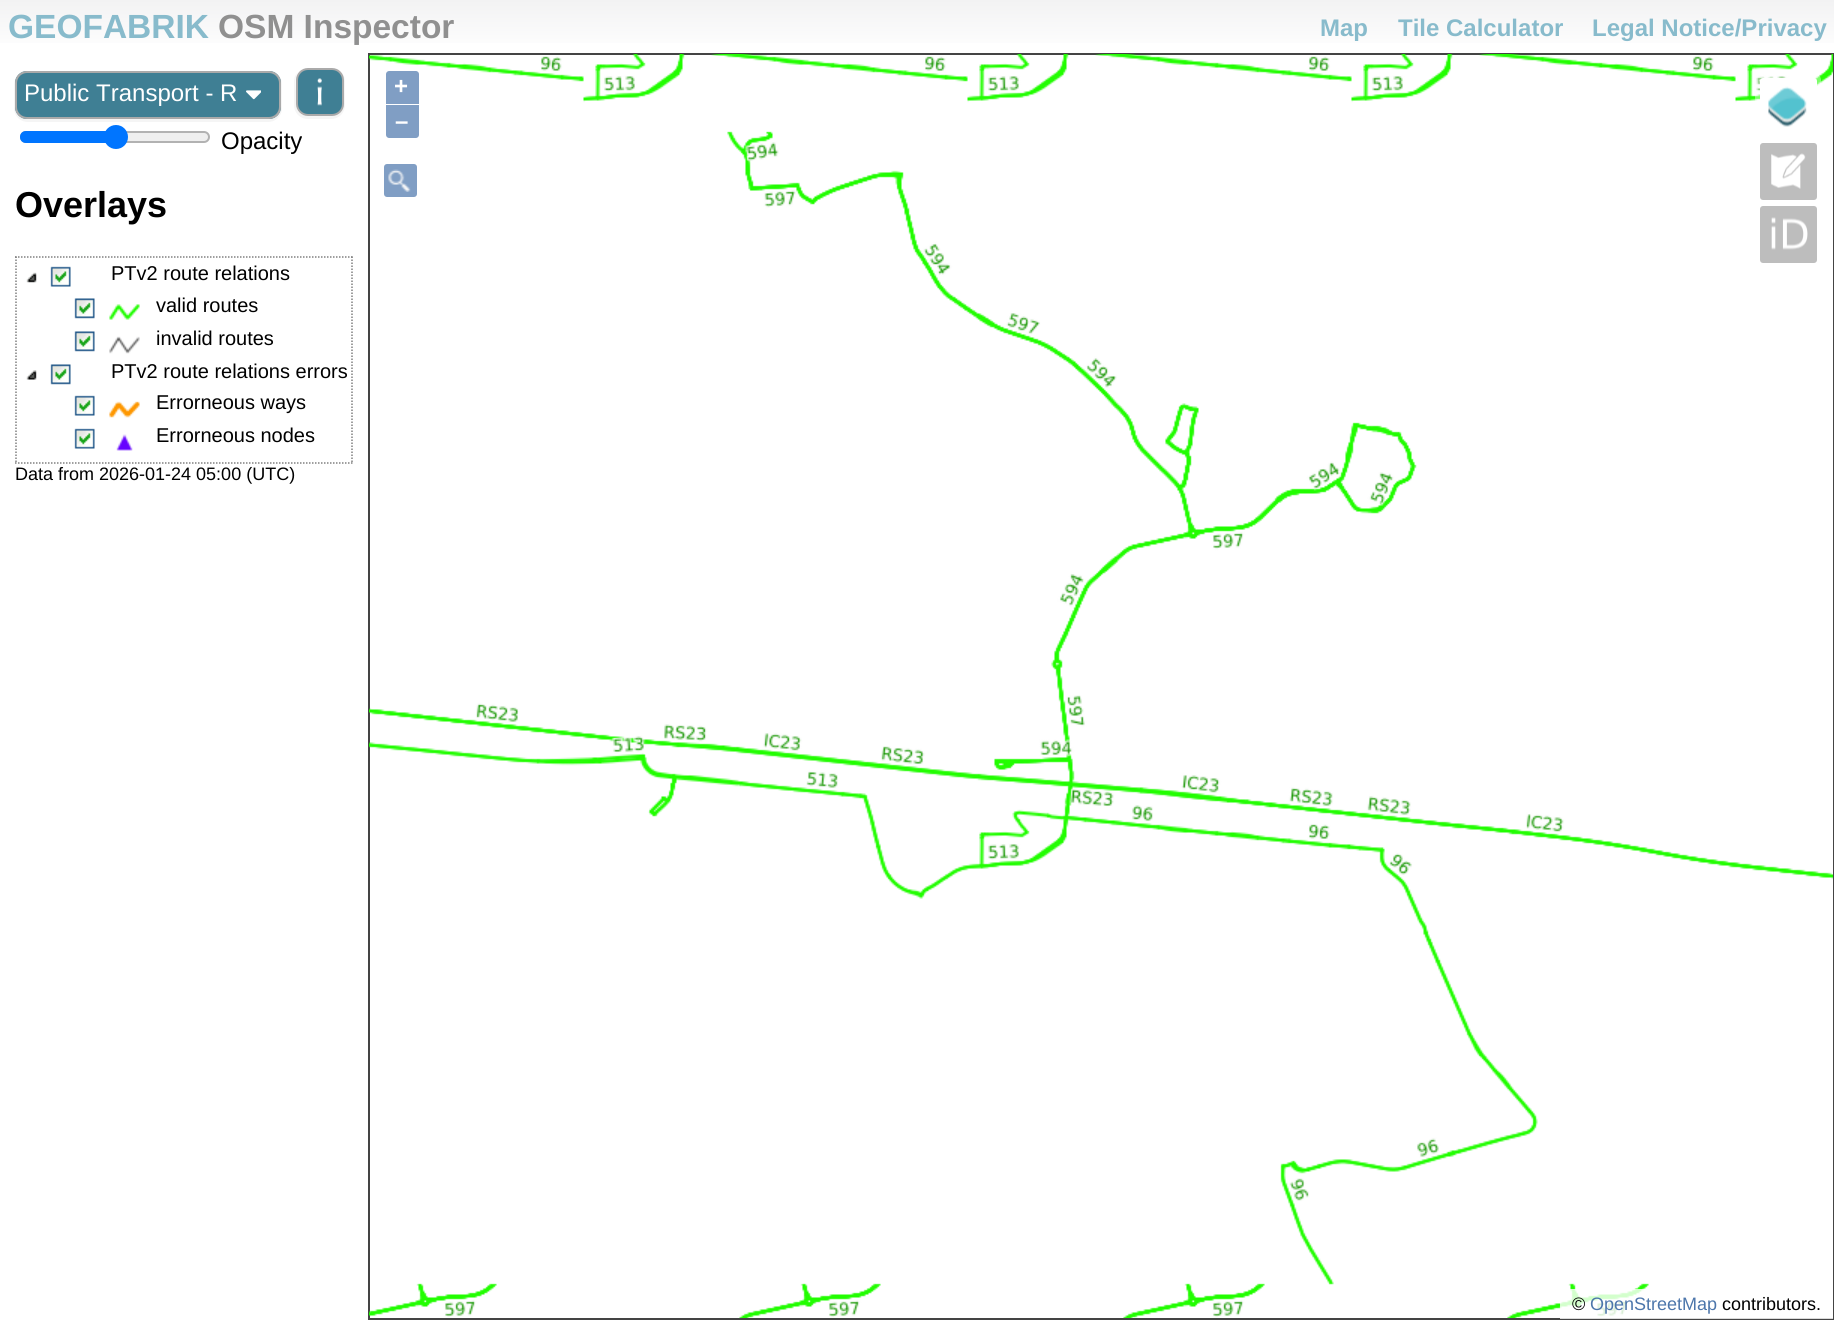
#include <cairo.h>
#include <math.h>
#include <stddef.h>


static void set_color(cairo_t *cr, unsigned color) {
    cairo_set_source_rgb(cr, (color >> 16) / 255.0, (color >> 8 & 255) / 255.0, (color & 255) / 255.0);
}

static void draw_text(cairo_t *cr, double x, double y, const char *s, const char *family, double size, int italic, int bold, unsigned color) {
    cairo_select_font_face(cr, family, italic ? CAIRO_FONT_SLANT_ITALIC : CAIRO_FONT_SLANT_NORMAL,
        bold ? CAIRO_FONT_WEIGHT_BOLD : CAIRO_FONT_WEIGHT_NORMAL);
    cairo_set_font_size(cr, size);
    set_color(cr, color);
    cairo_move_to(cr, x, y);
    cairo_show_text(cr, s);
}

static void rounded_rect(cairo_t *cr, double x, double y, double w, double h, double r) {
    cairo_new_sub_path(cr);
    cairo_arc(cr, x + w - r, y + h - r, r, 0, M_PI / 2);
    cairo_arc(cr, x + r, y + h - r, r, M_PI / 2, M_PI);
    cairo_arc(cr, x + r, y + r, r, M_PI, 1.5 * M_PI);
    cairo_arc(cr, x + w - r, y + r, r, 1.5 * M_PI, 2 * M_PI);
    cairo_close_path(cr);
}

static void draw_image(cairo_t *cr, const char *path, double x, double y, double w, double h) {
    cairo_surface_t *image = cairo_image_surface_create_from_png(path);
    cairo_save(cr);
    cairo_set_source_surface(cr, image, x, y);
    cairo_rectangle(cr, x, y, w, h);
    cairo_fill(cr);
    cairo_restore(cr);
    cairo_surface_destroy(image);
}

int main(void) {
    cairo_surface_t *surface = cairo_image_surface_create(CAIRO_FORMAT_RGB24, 1834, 1327);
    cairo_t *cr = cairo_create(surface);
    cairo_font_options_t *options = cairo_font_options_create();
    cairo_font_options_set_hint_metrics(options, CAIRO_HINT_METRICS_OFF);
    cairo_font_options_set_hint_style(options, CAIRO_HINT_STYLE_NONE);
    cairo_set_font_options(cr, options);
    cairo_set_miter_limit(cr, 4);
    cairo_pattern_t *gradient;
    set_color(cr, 0xFFFFFF);
    cairo_paint(cr);
    gradient = cairo_pattern_create_linear(917, 0, 917, 53);
    cairo_pattern_add_color_stop_rgba(gradient, 0, 0.949, 0.949, 0.953, 1);
    cairo_pattern_add_color_stop_rgba(gradient, 1, 1, 1, 1, 1);
    cairo_set_source(cr, gradient);
    cairo_pattern_destroy(gradient);
    cairo_rectangle(cr, 0, 0, 1834, 43);
    cairo_fill(cr);
    draw_text(cr, 8, 38, "GEOFABRIK", "Liberation Sans", 33.5, 0, 1, 0x88BBCC);
    draw_text(cr, 218, 38, "OSM Inspector", "Liberation Sans", 33.5, 0, 1, 0x909090);
    draw_text(cr, 1320, 36, "Map", "Liberation Sans", 24, 0, 1, 0x88BBCC);
    draw_text(cr, 1398, 36, "Tile Calculator", "Liberation Sans", 24, 0, 1, 0x88BBCC);
    draw_text(cr, 1592, 36, "Legal Notice/Privacy", "Liberation Sans", 24, 0, 1, 0x88BBCC);
    set_color(cr, 0xF5F5F5);
    cairo_new_path(cr);
    cairo_move_to(cr, 16, 78);
    cairo_curve_to(cr, 15, 80, 14, 82, 14, 85);
    cairo_line_to(cr, 14, 108);
    cairo_curve_to(cr, 14, 116, 20, 122, 28, 122);
    cairo_line_to(cr, 268, 122);
    cairo_curve_to(cr, 276, 122, 282, 116, 282, 108);
    cairo_line_to(cr, 282, 85);
    cairo_curve_to(cr, 282, 81, 281, 78, 278, 75);
    cairo_curve_to(cr, 280, 77, 280, 80, 280, 82);
    cairo_line_to(cr, 280, 106);
    cairo_curve_to(cr, 280, 113, 275, 118, 268, 118);
    cairo_line_to(cr, 27, 118);
    cairo_curve_to(cr, 20, 118, 15, 113, 15, 106);
    cairo_line_to(cr, 15, 82);
    cairo_close_path(cr);
    cairo_fill(cr);
    set_color(cr, 0x3F7F94);
    rounded_rect(cr, 15, 71, 266, 48, 12);
    cairo_fill(cr);
    draw_image(cr, "assets/img1.png", 246, 90, 15, 10);
    rounded_rect(cr, 16, 72, 264, 46, 11);
    set_color(cr, 0xAAAAAA);
    cairo_stroke(cr);
    draw_text(cr, 24, 101, "Public Transport - R", "Liberation Sans", 24, 0, 0, 0xFFFFFF);
    set_color(cr, 0xF5F5F5);
    cairo_new_path(cr);
    cairo_move_to(cr, 298, 72);
    cairo_curve_to(cr, 295, 75, 294, 78, 294, 82);
    cairo_line_to(cr, 294, 105);
    cairo_curve_to(cr, 294, 113, 300, 119, 308, 119);
    cairo_line_to(cr, 331, 119);
    cairo_curve_to(cr, 339, 119, 345, 113, 345, 105);
    cairo_line_to(cr, 345, 82);
    cairo_curve_to(cr, 345, 78, 344, 75, 341, 72);
    cairo_curve_to(cr, 345, 78, 344, 89, 344, 96);
    cairo_line_to(cr, 343, 106);
    cairo_curve_to(cr, 341, 118, 328, 116, 320, 116);
    cairo_curve_to(cr, 311, 116, 298, 118, 296, 106);
    cairo_line_to(cr, 296, 92);
    cairo_curve_to(cr, 296, 85, 294, 78, 298, 72);
    cairo_close_path(cr);
    cairo_fill(cr);
    set_color(cr, 0x3F7F94);
    rounded_rect(cr, 297, 69, 46, 46, 11);
    cairo_fill_preserve(cr);
    set_color(cr, 0xAAAAAA);
    cairo_stroke(cr);
    draw_image(cr, "assets/img2.png", 317, 78, 5, 28);
    set_color(cr, 0xEFEFEF);
    rounded_rect(cr, 21, 132, 188, 10, 5);
    cairo_fill_preserve(cr);
    set_color(cr, 0xB2B2B2);
    cairo_stroke(cr);
    set_color(cr, 0x0075FF);
    cairo_new_path(cr);
    cairo_move_to(cr, 26, 131);
    cairo_line_to(cr, 116, 131);
    cairo_line_to(cr, 116, 143);
    cairo_line_to(cr, 26, 143);
    cairo_curve_to(cr, 22.5, 143, 20, 140.5, 20, 137);
    cairo_curve_to(cr, 20, 133.5, 22.5, 131, 26, 131);
    cairo_close_path(cr);
    cairo_fill(cr);
    cairo_arc(cr, 116, 137, 12, 0, 2 * M_PI);
    cairo_fill(cr);
    draw_text(cr, 221, 149, "Opacity", "Liberation Sans", 24, 0, 0, 0x000000);
    draw_text(cr, 15, 217, "Overlays", "Liberation Sans", 36, 0, 1, 0x000000);
    cairo_new_path(cr);
    cairo_move_to(cr, 15, 257);
    cairo_line_to(cr, 352.5, 257);
    set_color(cr, 0x808080);
    cairo_set_line_width(cr, 1.5);
    cairo_set_dash(cr, (double[]){1.5, 1.5}, 2, 0);
    cairo_stroke(cr);
    cairo_new_path(cr);
    cairo_move_to(cr, 352, 256.5);
    cairo_line_to(cr, 352, 463.5);
    cairo_stroke(cr);
    cairo_new_path(cr);
    cairo_move_to(cr, 15, 463);
    cairo_line_to(cr, 352.5, 463);
    cairo_stroke(cr);
    cairo_new_path(cr);
    cairo_move_to(cr, 16, 256.5);
    cairo_line_to(cr, 16, 463.5);
    cairo_stroke(cr);
    draw_image(cr, "assets/img3.png", 26, 272, 11, 11);
    draw_image(cr, "assets/img4.png", 50, 266, 21, 21);
    draw_text(cr, 111, 280, "PTv2 route relations", "Liberation Sans", 20, 0, 0, 0x000000);
    draw_image(cr, "assets/img5.png", 74, 298, 21, 21);
    draw_image(cr, "assets/img6.png", 109, 304, 31, 16);
    draw_text(cr, 156, 312, "valid routes", "Liberation Sans", 20, 0, 0, 0x000000);
    draw_image(cr, "assets/img5.png", 74, 331, 21, 21);
    draw_image(cr, "assets/img7.png", 109, 336, 31, 18);
    draw_text(cr, 156, 345, "invalid routes", "Liberation Sans", 20, 0, 0, 0x000000);
    draw_image(cr, "assets/img8.png", 26, 370, 11, 10);
    draw_image(cr, "assets/img5.png", 50, 364, 21, 21);
    draw_text(cr, 111, 378, "PTv2 route relations errors", "Liberation Sans", 20, 0, 0, 0x000000);
    draw_image(cr, "assets/img4.png", 74, 395, 21, 21);
    draw_image(cr, "assets/img9.png", 109, 401, 31, 17);
    draw_text(cr, 156, 409, "Errorneous ways", "Liberation Sans", 20, 0, 0, 0x000000);
    draw_image(cr, "assets/img4.png", 74, 428, 21, 21);
    draw_image(cr, "assets/img10.png", 116, 434, 17, 17);
    draw_text(cr, 156, 442, "Errorneous nodes", "Liberation Sans", 20, 0, 0, 0x000000);
    draw_text(cr, 15, 480, "Data from 2026-01-24 05:00 (UTC)", "Liberation Sans", 18, 0, 0, 0x000000);
    cairo_rectangle(cr, 369, 54, 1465, 1265);
    set_color(cr, 0x444444);
    cairo_set_line_width(cr, 2);
    cairo_set_dash(cr, NULL, 0, 0);
    cairo_stroke(cr);
    draw_image(cr, "assets/img11.png", 369, 54, 1464, 1264);
    set_color(cr, 0x809EC4);
    cairo_new_path(cr);
    cairo_move_to(cr, 389, 71);
    cairo_line_to(cr, 416, 71);
    cairo_curve_to(cr, 417.5, 71, 419, 72.5, 419, 74);
    cairo_line_to(cr, 419, 104);
    cairo_line_to(cr, 386, 104);
    cairo_line_to(cr, 386, 74);
    cairo_curve_to(cr, 386, 72.5, 387.5, 71, 389, 71);
    cairo_close_path(cr);
    cairo_fill(cr);
    draw_text(cr, 394, 94, "+", "Liberation Sans", 24, 0, 1, 0xFFFFFF);
    set_color(cr, 0x809EC4);
    cairo_new_path(cr);
    cairo_move_to(cr, 386, 105);
    cairo_line_to(cr, 419, 105);
    cairo_line_to(cr, 419, 135);
    cairo_curve_to(cr, 419, 136.5, 417.5, 138, 416, 138);
    cairo_line_to(cr, 389, 138);
    cairo_curve_to(cr, 387.5, 138, 386, 136.5, 386, 135);
    cairo_close_path(cr);
    cairo_fill(cr);
    draw_text(cr, 395, 129, "–", "Liberation Sans", 24, 0, 1, 0xFFFFFF);
    cairo_set_source_rgba(cr, 1, 1, 1, 0.4);
    rounded_rect(cr, 1755, 74, 66, 66, 6);
    cairo_fill(cr);
    set_color(cr, 0xFFFFFF);
    rounded_rect(cr, 1760, 78, 57, 57, 3);
    cairo_fill(cr);
    draw_image(cr, "assets/img12.png", 1768, 86, 39, 41);
    set_color(cr, 0x809EC4);
    rounded_rect(cr, 384, 164, 33, 33, 3);
    cairo_fill(cr);
    draw_image(cr, "assets/img13.png", 388, 169, 23, 23);
    set_color(cr, 0xBDBDBD);
    rounded_rect(cr, 1760, 143, 57, 57, 3);
    cairo_fill(cr);
    draw_image(cr, "assets/img14.png", 1771, 153, 35, 36);
    rounded_rect(cr, 1760, 206, 57, 57, 3);
    cairo_fill(cr);
    draw_image(cr, "assets/img15.png", 1771, 217, 37, 33);
    cairo_set_source_rgba(cr, 1, 1, 1, 0.8);
    cairo_new_path(cr);
    cairo_move_to(cr, 1566, 1289);
    cairo_line_to(cr, 1833, 1289);
    cairo_line_to(cr, 1833, 1319);
    cairo_line_to(cr, 1560, 1319);
    cairo_line_to(cr, 1560, 1295);
    cairo_curve_to(cr, 1560, 1291.5, 1562.5, 1289, 1566, 1289);
    cairo_close_path(cr);
    cairo_fill(cr);
    draw_text(cr, 1572, 1310, "©", "Liberation Sans", 18, 0, 0, 0x000000);
    draw_text(cr, 1590, 1310, "OpenStreetMap", "Liberation Sans", 18, 0, 0, 0x4C76AB);
    draw_text(cr, 1722, 1310, "contributors.", "Liberation Sans", 18, 0, 0, 0x000000);
    cairo_surface_write_to_png(surface, "output.png");
    cairo_font_options_destroy(options);
    cairo_destroy(cr);
    cairo_surface_destroy(surface);
    return 0;
}
